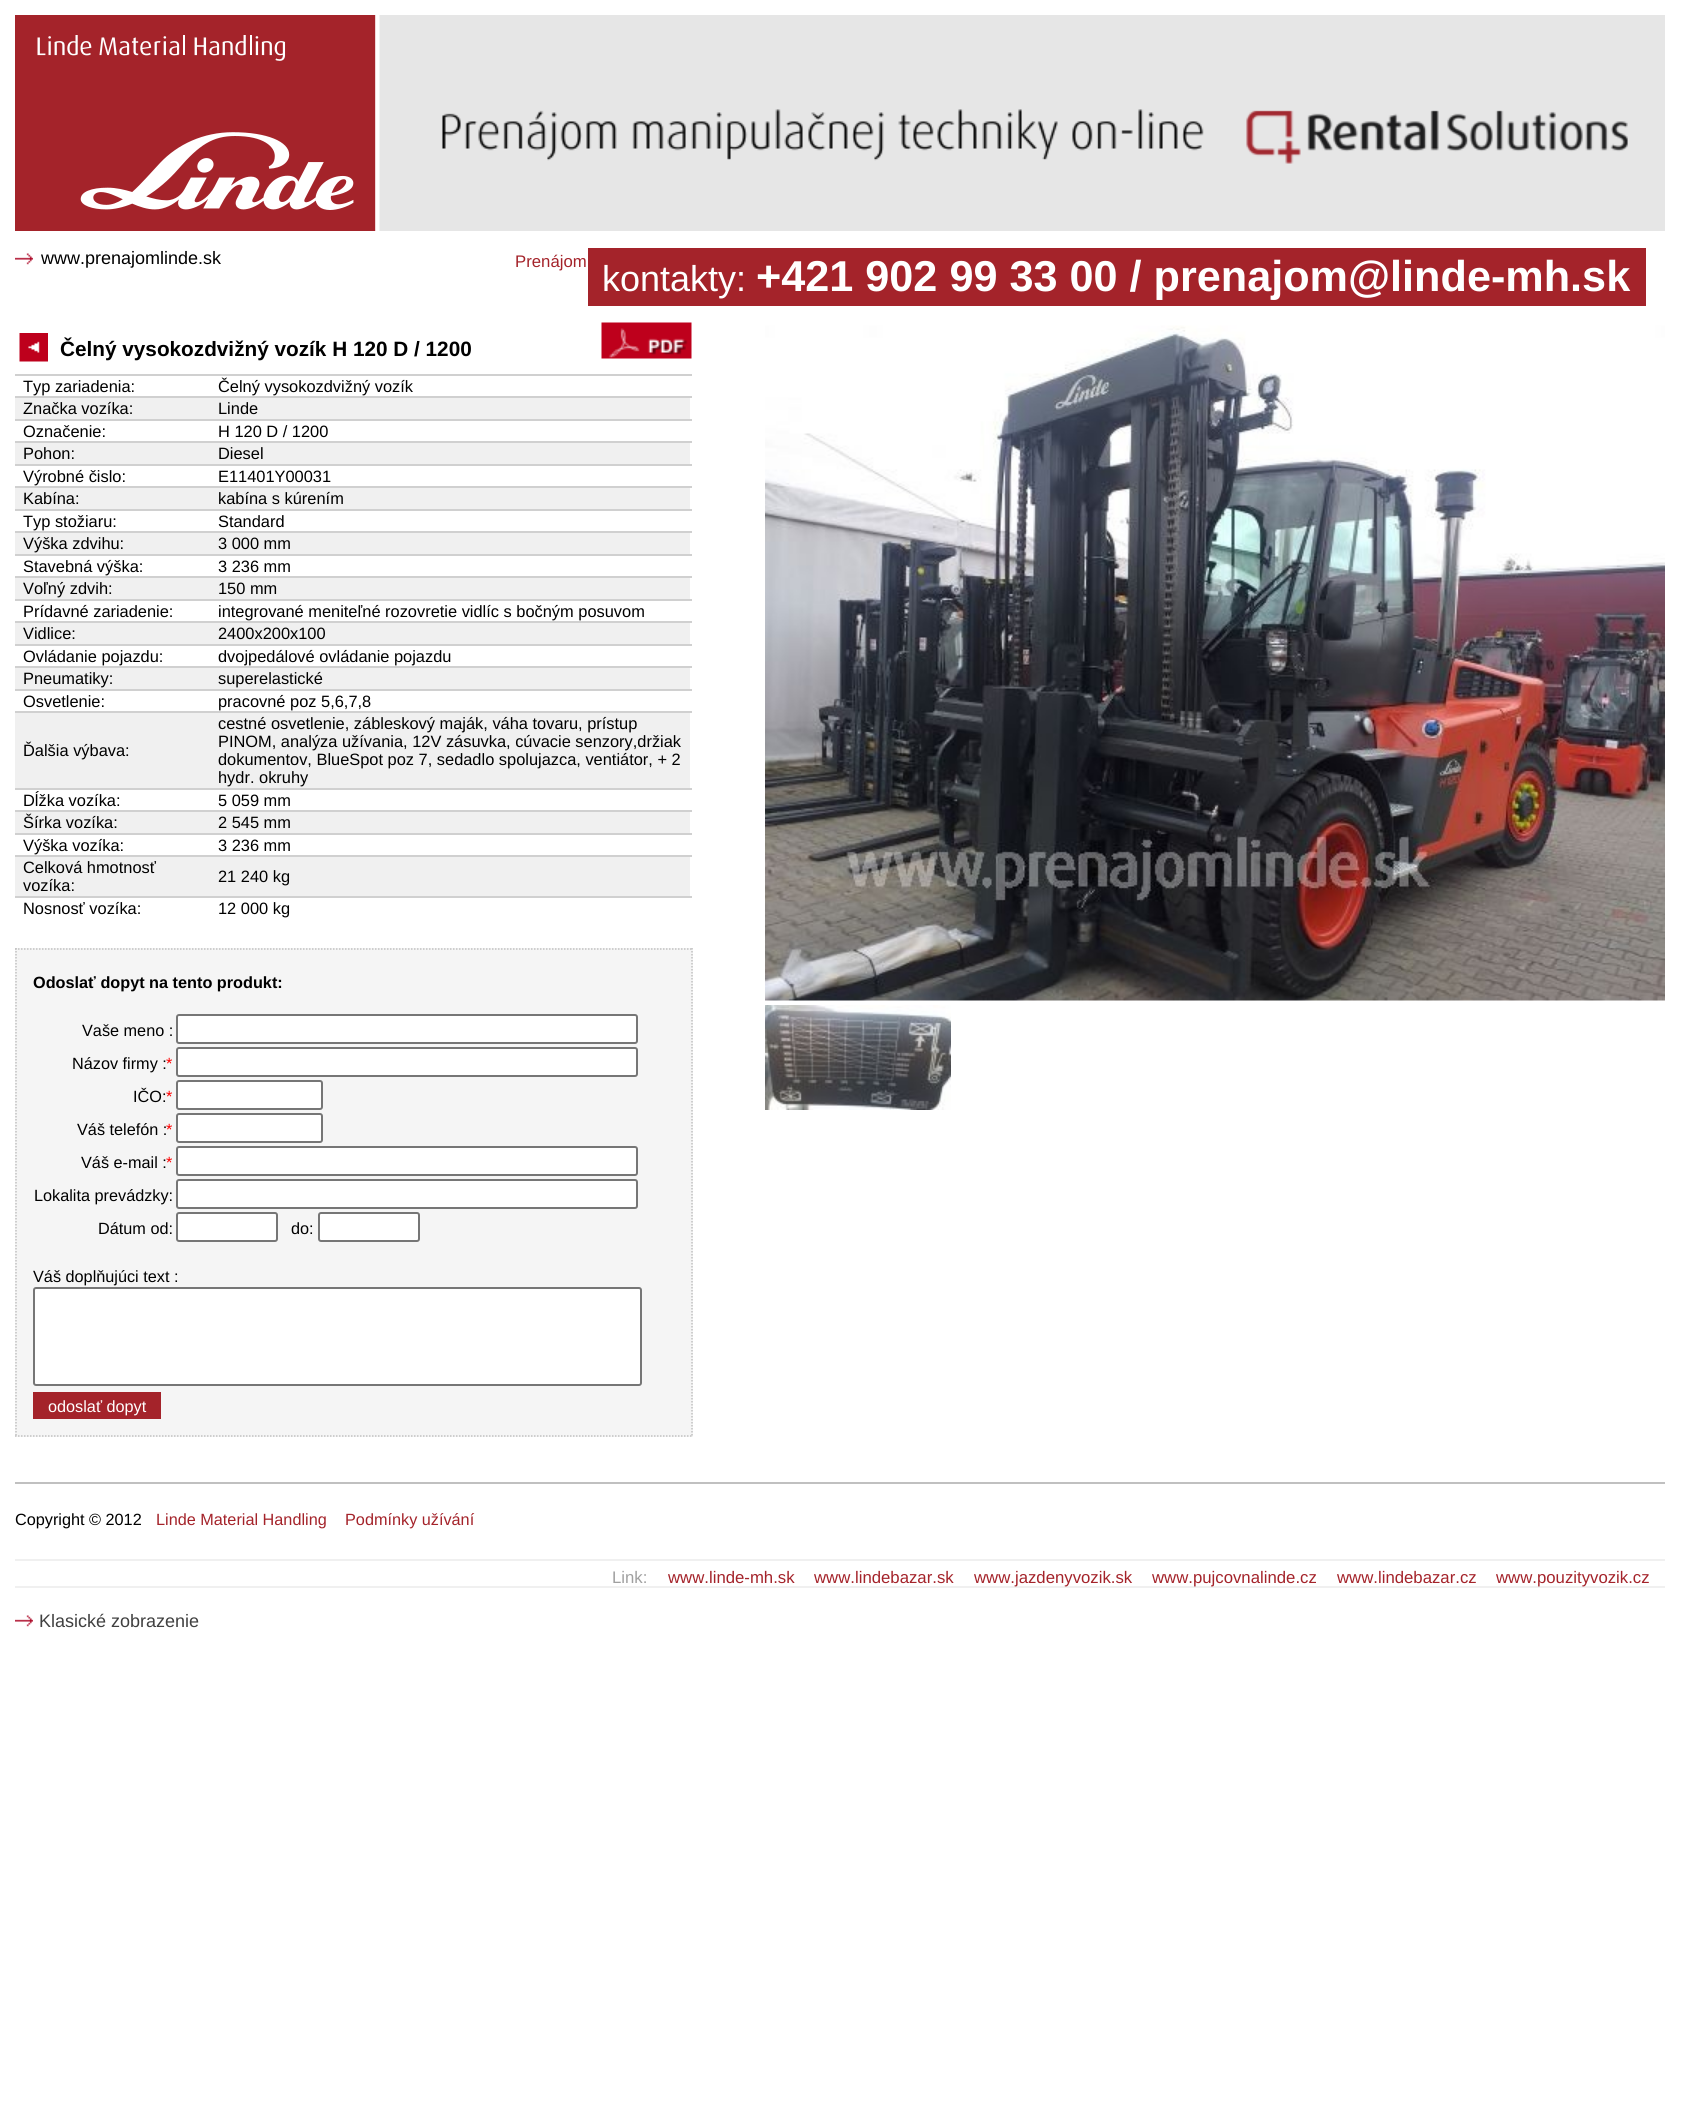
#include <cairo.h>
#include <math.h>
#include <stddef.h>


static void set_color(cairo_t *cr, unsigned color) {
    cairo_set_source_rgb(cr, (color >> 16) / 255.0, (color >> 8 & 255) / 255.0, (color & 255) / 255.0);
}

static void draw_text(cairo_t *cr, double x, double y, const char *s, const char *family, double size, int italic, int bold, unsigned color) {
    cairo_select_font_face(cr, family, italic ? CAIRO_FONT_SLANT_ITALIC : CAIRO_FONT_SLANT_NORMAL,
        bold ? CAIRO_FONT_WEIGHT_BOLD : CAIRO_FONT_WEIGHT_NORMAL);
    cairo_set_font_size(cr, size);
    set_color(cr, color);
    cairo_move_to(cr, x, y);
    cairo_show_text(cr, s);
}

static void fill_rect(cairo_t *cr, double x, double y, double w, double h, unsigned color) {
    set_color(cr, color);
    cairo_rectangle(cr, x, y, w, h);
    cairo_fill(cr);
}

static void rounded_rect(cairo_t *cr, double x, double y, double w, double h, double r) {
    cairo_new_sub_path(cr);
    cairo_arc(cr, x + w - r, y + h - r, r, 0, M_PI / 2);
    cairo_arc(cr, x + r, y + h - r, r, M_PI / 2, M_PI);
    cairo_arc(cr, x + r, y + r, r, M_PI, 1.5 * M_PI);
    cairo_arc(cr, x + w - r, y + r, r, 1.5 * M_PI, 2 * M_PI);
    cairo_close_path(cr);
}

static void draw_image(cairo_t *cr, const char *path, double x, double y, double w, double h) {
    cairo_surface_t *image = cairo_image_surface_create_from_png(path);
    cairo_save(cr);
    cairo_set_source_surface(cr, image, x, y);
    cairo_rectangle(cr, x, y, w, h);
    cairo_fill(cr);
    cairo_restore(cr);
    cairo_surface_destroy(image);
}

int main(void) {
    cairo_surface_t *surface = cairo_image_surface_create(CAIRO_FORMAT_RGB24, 1695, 2114);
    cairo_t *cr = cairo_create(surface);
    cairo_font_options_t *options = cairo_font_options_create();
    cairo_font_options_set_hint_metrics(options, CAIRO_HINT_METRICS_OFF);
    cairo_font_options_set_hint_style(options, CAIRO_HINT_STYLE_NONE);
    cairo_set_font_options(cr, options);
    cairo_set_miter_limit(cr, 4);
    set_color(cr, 0xFFFFFF);
    cairo_paint(cr);
    draw_image(cr, "assets/img1.png", 375, 15, 1290, 216);
    draw_image(cr, "assets/img2.png", 15, 15, 360, 216);
    draw_image(cr, "assets/img3.png", 15, 253, 18, 12);
    draw_text(cr, 41, 264, "www.prenajomlinde.sk", "Liberation Sans", 18, 0, 0, 0x000000);
    draw_text(cr, 515, 267, "Prenájom", "Liberation Sans", 16.75, 0, 0, 0xA4232A);
    fill_rect(cr, 588, 248, 1058, 58, 0xA4232A);
    draw_text(cr, 602, 291, "kontakty:", "Liberation Sans", 36, 0, 0, 0xFFFFFF);
    draw_text(cr, 756, 291, "+421 902 99 33 00 / prenajom@linde-mh.sk", "Liberation Sans", 43.2, 0, 1, 0xFFFFFF);
    draw_image(cr, "assets/img4.png", 19, 333, 29, 29);
    draw_text(cr, 60, 356, "Čelný vysokozdvižný vozík H 120 D / 1200", "Liberation Sans", 20.75, 0, 1, 0x000000);
    draw_text(cr, 23, 392, "Typ zariadenia:", "Liberation Sans", 16.4, 0, 0, 0x000000);
    fill_rect(cr, 15, 374, 677, 2, 0xD0D0D0);
    draw_text(cr, 218, 392, "Čelný vysokozdvižný vozík", "Liberation Sans", 16.4, 0, 0, 0x000000);
    fill_rect(cr, 15, 398, 675, 21, 0xF0F0F0);
    draw_text(cr, 23, 414, "Značka vozíka:", "Liberation Sans", 16.4, 0, 0, 0x000000);
    fill_rect(cr, 15, 396, 677, 2, 0xD0D0D0);
    draw_text(cr, 218, 414, "Linde", "Liberation Sans", 16.4, 0, 0, 0x000000);
    draw_text(cr, 23, 437, "Označenie:", "Liberation Sans", 16.4, 0, 0, 0x000000);
    fill_rect(cr, 15, 419, 677, 2, 0xD0D0D0);
    draw_text(cr, 218, 437, "H 120 D / 1200", "Liberation Sans", 16.4, 0, 0, 0x000000);
    fill_rect(cr, 15, 443, 675, 21, 0xF0F0F0);
    draw_text(cr, 23, 459, "Pohon:", "Liberation Sans", 16.4, 0, 0, 0x000000);
    fill_rect(cr, 15, 441, 677, 2, 0xD0D0D0);
    draw_text(cr, 218, 459, "Diesel", "Liberation Sans", 16.4, 0, 0, 0x000000);
    draw_text(cr, 23, 482, "Výrobné čislo:", "Liberation Sans", 16.4, 0, 0, 0x000000);
    fill_rect(cr, 15, 464, 677, 2, 0xD0D0D0);
    draw_text(cr, 218, 482, "E11401Y00031", "Liberation Sans", 16.4, 0, 0, 0x000000);
    fill_rect(cr, 15, 488, 675, 21, 0xF0F0F0);
    draw_text(cr, 23, 504, "Kabína:", "Liberation Sans", 16.4, 0, 0, 0x000000);
    fill_rect(cr, 15, 486, 677, 2, 0xD0D0D0);
    draw_text(cr, 218, 504, "kabína s kúrením", "Liberation Sans", 16.4, 0, 0, 0x000000);
    draw_text(cr, 23, 527, "Typ stožiaru:", "Liberation Sans", 16.4, 0, 0, 0x000000);
    fill_rect(cr, 15, 509, 677, 2, 0xD0D0D0);
    draw_text(cr, 218, 527, "Standard", "Liberation Sans", 16.4, 0, 0, 0x000000);
    fill_rect(cr, 15, 533, 675, 21, 0xF0F0F0);
    draw_text(cr, 23, 549, "Výška zdvihu:", "Liberation Sans", 16.4, 0, 0, 0x000000);
    fill_rect(cr, 15, 531, 677, 2, 0xD0D0D0);
    draw_text(cr, 218, 549, "3 000 mm", "Liberation Sans", 16.4, 0, 0, 0x000000);
    draw_text(cr, 23, 572, "Stavebná výška:", "Liberation Sans", 16.4, 0, 0, 0x000000);
    fill_rect(cr, 15, 554, 677, 2, 0xD0D0D0);
    draw_text(cr, 218, 572, "3 236 mm", "Liberation Sans", 16.4, 0, 0, 0x000000);
    fill_rect(cr, 15, 578, 675, 21, 0xF0F0F0);
    draw_text(cr, 23, 594, "Voľný zdvih:", "Liberation Sans", 16.4, 0, 0, 0x000000);
    fill_rect(cr, 15, 576, 677, 2, 0xD0D0D0);
    draw_text(cr, 218, 594, "150 mm", "Liberation Sans", 16.4, 0, 0, 0x000000);
    draw_text(cr, 23, 617, "Prídavné zariadenie:", "Liberation Sans", 16.4, 0, 0, 0x000000);
    fill_rect(cr, 15, 599, 677, 2, 0xD0D0D0);
    draw_text(cr, 218, 617, "integrované meniteľné rozovretie vidlíc s bočným posuvom", "Liberation Sans", 16.4, 0, 0, 0x000000);
    fill_rect(cr, 15, 623, 675, 21, 0xF0F0F0);
    draw_text(cr, 23, 639, "Vidlice:", "Liberation Sans", 16.4, 0, 0, 0x000000);
    fill_rect(cr, 15, 621, 677, 2, 0xD0D0D0);
    draw_text(cr, 218, 639, "2400x200x100", "Liberation Sans", 16.4, 0, 0, 0x000000);
    draw_text(cr, 23, 662, "Ovládanie pojazdu:", "Liberation Sans", 16.4, 0, 0, 0x000000);
    fill_rect(cr, 15, 644, 677, 2, 0xD0D0D0);
    draw_text(cr, 218, 662, "dvojpedálové ovládanie pojazdu", "Liberation Sans", 16.4, 0, 0, 0x000000);
    fill_rect(cr, 15, 668, 675, 21, 0xF0F0F0);
    draw_text(cr, 23, 684, "Pneumatiky:", "Liberation Sans", 16.4, 0, 0, 0x000000);
    fill_rect(cr, 15, 666, 677, 2, 0xD0D0D0);
    draw_text(cr, 218, 684, "superelastické", "Liberation Sans", 16.4, 0, 0, 0x000000);
    draw_text(cr, 23, 707, "Osvetlenie:", "Liberation Sans", 16.4, 0, 0, 0x000000);
    fill_rect(cr, 15, 689, 677, 2, 0xD0D0D0);
    draw_text(cr, 218, 707, "pracovné poz 5,6,7,8", "Liberation Sans", 16.4, 0, 0, 0x000000);
    fill_rect(cr, 15, 713, 675, 75, 0xF0F0F0);
    draw_text(cr, 23, 756, "Ďalšia výbava:", "Liberation Sans", 16.4, 0, 0, 0x000000);
    fill_rect(cr, 15, 711, 677, 2, 0xD0D0D0);
    draw_text(cr, 218, 729, "cestné osvetlenie, zábleskový maják, váha tovaru, prístup", "Liberation Sans", 16.4, 0, 0, 0x000000);
    draw_text(cr, 218, 747, "PINOM, analýza užívania, 12V zásuvka, cúvacie senzory,držiak", "Liberation Sans", 16.4, 0, 0, 0x000000);
    draw_text(cr, 218, 765, "dokumentov, BlueSpot poz 7, sedadlo spolujazca, ventiátor, + 2", "Liberation Sans", 16.4, 0, 0, 0x000000);
    draw_text(cr, 218, 783, "hydr. okruhy", "Liberation Sans", 16.4, 0, 0, 0x000000);
    draw_text(cr, 23, 806, "Dĺžka vozíka:", "Liberation Sans", 16.4, 0, 0, 0x000000);
    fill_rect(cr, 15, 788, 677, 2, 0xD0D0D0);
    draw_text(cr, 218, 806, "5 059 mm", "Liberation Sans", 16.4, 0, 0, 0x000000);
    fill_rect(cr, 15, 812, 675, 21, 0xF0F0F0);
    draw_text(cr, 23, 828, "Šírka vozíka:", "Liberation Sans", 16.4, 0, 0, 0x000000);
    fill_rect(cr, 15, 810, 677, 2, 0xD0D0D0);
    draw_text(cr, 218, 828, "2 545 mm", "Liberation Sans", 16.4, 0, 0, 0x000000);
    draw_text(cr, 23, 851, "Výška vozíka:", "Liberation Sans", 16.4, 0, 0, 0x000000);
    fill_rect(cr, 15, 833, 677, 2, 0xD0D0D0);
    draw_text(cr, 218, 851, "3 236 mm", "Liberation Sans", 16.4, 0, 0, 0x000000);
    fill_rect(cr, 15, 857, 675, 39, 0xF0F0F0);
    draw_text(cr, 23, 873, "Celková hmotnosť", "Liberation Sans", 16.4, 0, 0, 0x000000);
    draw_text(cr, 23, 891, "vozíka:", "Liberation Sans", 16.4, 0, 0, 0x000000);
    fill_rect(cr, 15, 855, 677, 2, 0xD0D0D0);
    draw_text(cr, 218, 882, "21 240 kg", "Liberation Sans", 16.4, 0, 0, 0x000000);
    draw_text(cr, 23, 914, "Nosnosť vozíka:", "Liberation Sans", 16.4, 0, 0, 0x000000);
    fill_rect(cr, 15, 896, 677, 2, 0xD0D0D0);
    draw_text(cr, 218, 914, "12 000 kg", "Liberation Sans", 16.4, 0, 0, 0x000000);
    fill_rect(cr, 15, 948, 678, 489, 0xF5F5F5);
    cairo_new_path(cr);
    cairo_move_to(cr, 15, 949);
    cairo_line_to(cr, 693, 949);
    set_color(cr, 0xC0C0C0);
    cairo_set_line_width(cr, 1.5);
    cairo_set_dash(cr, (double[]){1.5, 1.5}, 2, 0);
    cairo_stroke(cr);
    cairo_new_path(cr);
    cairo_move_to(cr, 692, 948);
    cairo_line_to(cr, 692, 1437);
    cairo_stroke(cr);
    cairo_new_path(cr);
    cairo_move_to(cr, 15, 1436);
    cairo_line_to(cr, 693, 1436);
    cairo_stroke(cr);
    cairo_new_path(cr);
    cairo_move_to(cr, 16, 948);
    cairo_line_to(cr, 16, 1437);
    cairo_stroke(cr);
    draw_text(cr, 33, 988, "Odoslať dopyt na tento produkt:", "Liberation Sans", 16.25, 0, 1, 0x000000);
    draw_text(cr, 82, 1036, "Vaše meno :", "Liberation Sans", 16.25, 0, 0, 0x000000);
    set_color(cr, 0xFFFFFF);
    rounded_rect(cr, 177, 1015, 460, 28, 2);
    cairo_fill_preserve(cr);
    set_color(cr, 0x767676);
    cairo_set_line_width(cr, 2);
    cairo_set_dash(cr, NULL, 0, 0);
    cairo_stroke(cr);
    draw_text(cr, 72, 1069, "Názov firmy :", "Liberation Sans", 16.25, 0, 0, 0x000000);
    draw_text(cr, 166, 1069, "*", "Liberation Sans", 16.25, 0, 0, 0xFF0000);
    set_color(cr, 0xFFFFFF);
    rounded_rect(cr, 177, 1048, 460, 28, 2);
    cairo_fill_preserve(cr);
    set_color(cr, 0x767676);
    cairo_stroke(cr);
    draw_text(cr, 133, 1102, "IČO:", "Liberation Sans", 16.25, 0, 0, 0x000000);
    draw_text(cr, 166, 1102, "*", "Liberation Sans", 16.25, 0, 0, 0xFF0000);
    set_color(cr, 0xFFFFFF);
    rounded_rect(cr, 177, 1081, 145, 28, 2);
    cairo_fill_preserve(cr);
    set_color(cr, 0x767676);
    cairo_stroke(cr);
    draw_text(cr, 77, 1135, "Váš telefón :", "Liberation Sans", 16.25, 0, 0, 0x000000);
    draw_text(cr, 166, 1135, "*", "Liberation Sans", 16.25, 0, 0, 0xFF0000);
    set_color(cr, 0xFFFFFF);
    rounded_rect(cr, 177, 1114, 145, 28, 2);
    cairo_fill_preserve(cr);
    set_color(cr, 0x767676);
    cairo_stroke(cr);
    draw_text(cr, 81, 1168, "Váš e-mail :", "Liberation Sans", 16.25, 0, 0, 0x000000);
    draw_text(cr, 166, 1168, "*", "Liberation Sans", 16.25, 0, 0, 0xFF0000);
    set_color(cr, 0xFFFFFF);
    rounded_rect(cr, 177, 1147, 460, 28, 2);
    cairo_fill_preserve(cr);
    set_color(cr, 0x767676);
    cairo_stroke(cr);
    draw_text(cr, 34, 1201, "Lokalita prevádzky:", "Liberation Sans", 16.25, 0, 0, 0x000000);
    set_color(cr, 0xFFFFFF);
    rounded_rect(cr, 177, 1180, 460, 28, 2);
    cairo_fill_preserve(cr);
    set_color(cr, 0x767676);
    cairo_stroke(cr);
    draw_text(cr, 98, 1234, "Dátum od:", "Liberation Sans", 16.25, 0, 0, 0x000000);
    set_color(cr, 0xFFFFFF);
    rounded_rect(cr, 177, 1213, 100, 28, 2);
    cairo_fill_preserve(cr);
    set_color(cr, 0x767676);
    cairo_stroke(cr);
    draw_text(cr, 291, 1234, "do:", "Liberation Sans", 16.25, 0, 0, 0x000000);
    set_color(cr, 0xFFFFFF);
    rounded_rect(cr, 319, 1213, 100, 28, 2);
    cairo_fill_preserve(cr);
    set_color(cr, 0x767676);
    cairo_stroke(cr);
    draw_text(cr, 33, 1282, "Váš doplňujúci text :", "Liberation Sans", 16.25, 0, 0, 0x000000);
    set_color(cr, 0xFFFFFF);
    rounded_rect(cr, 34, 1288, 607, 97, 2);
    cairo_fill_preserve(cr);
    set_color(cr, 0x767676);
    cairo_stroke(cr);
    fill_rect(cr, 33, 1392, 128, 27, 0xA4232A);
    draw_text(cr, 48, 1412, "odoslať dopyt", "Liberation Sans", 16.25, 0, 0, 0xFFFFFF);
    draw_image(cr, "assets/img5.png", 601, 322, 91, 37);
    draw_image(cr, "assets/img6.png", 765, 325, 900, 676);
    draw_image(cr, "assets/img7.png", 765, 1005, 186, 105);
    fill_rect(cr, 15, 1482, 1650, 2, 0xC0C0C0);
    draw_text(cr, 15, 1525, "Copyright © 2012", "Liberation Sans", 16.25, 0, 0, 0x000000);
    draw_text(cr, 156, 1525, "Linde Material Handling", "Liberation Sans", 16.25, 0, 0, 0xA4232A);
    draw_text(cr, 345, 1525, "Podmínky užívání", "Liberation Sans", 16.25, 0, 0, 0xA4232A);
    fill_rect(cr, 15, 1559, 1650, 2, 0xF0F0F0);
    fill_rect(cr, 15, 1586, 1650, 2, 0xF0F0F0);
    draw_text(cr, 612, 1583, "Link:", "Liberation Sans", 16.75, 0, 0, 0xA0A0A0);
    draw_text(cr, 668, 1583, "www.linde-mh.sk", "Liberation Sans", 16.75, 0, 0, 0xA4232A);
    draw_text(cr, 814, 1583, "www.lindebazar.sk", "Liberation Sans", 16.75, 0, 0, 0xA4232A);
    draw_text(cr, 974, 1583, "www.jazdenyvozik.sk", "Liberation Sans", 16.75, 0, 0, 0xA4232A);
    draw_text(cr, 1152, 1583, "www.pujcovnalinde.cz", "Liberation Sans", 16.75, 0, 0, 0xA4232A);
    draw_text(cr, 1337, 1583, "www.lindebazar.cz", "Liberation Sans", 16.75, 0, 0, 0xA4232A);
    draw_text(cr, 1496, 1583, "www.pouzityvozik.cz", "Liberation Sans", 16.75, 0, 0, 0xA4232A);
    draw_image(cr, "assets/img3.png", 15, 1615, 18, 12);
    draw_text(cr, 39, 1627, "Klasické zobrazenie", "Liberation Sans", 18, 0, 0, 0x404040);
    cairo_surface_write_to_png(surface, "output.png");
    cairo_font_options_destroy(options);
    cairo_destroy(cr);
    cairo_surface_destroy(surface);
    return 0;
}
